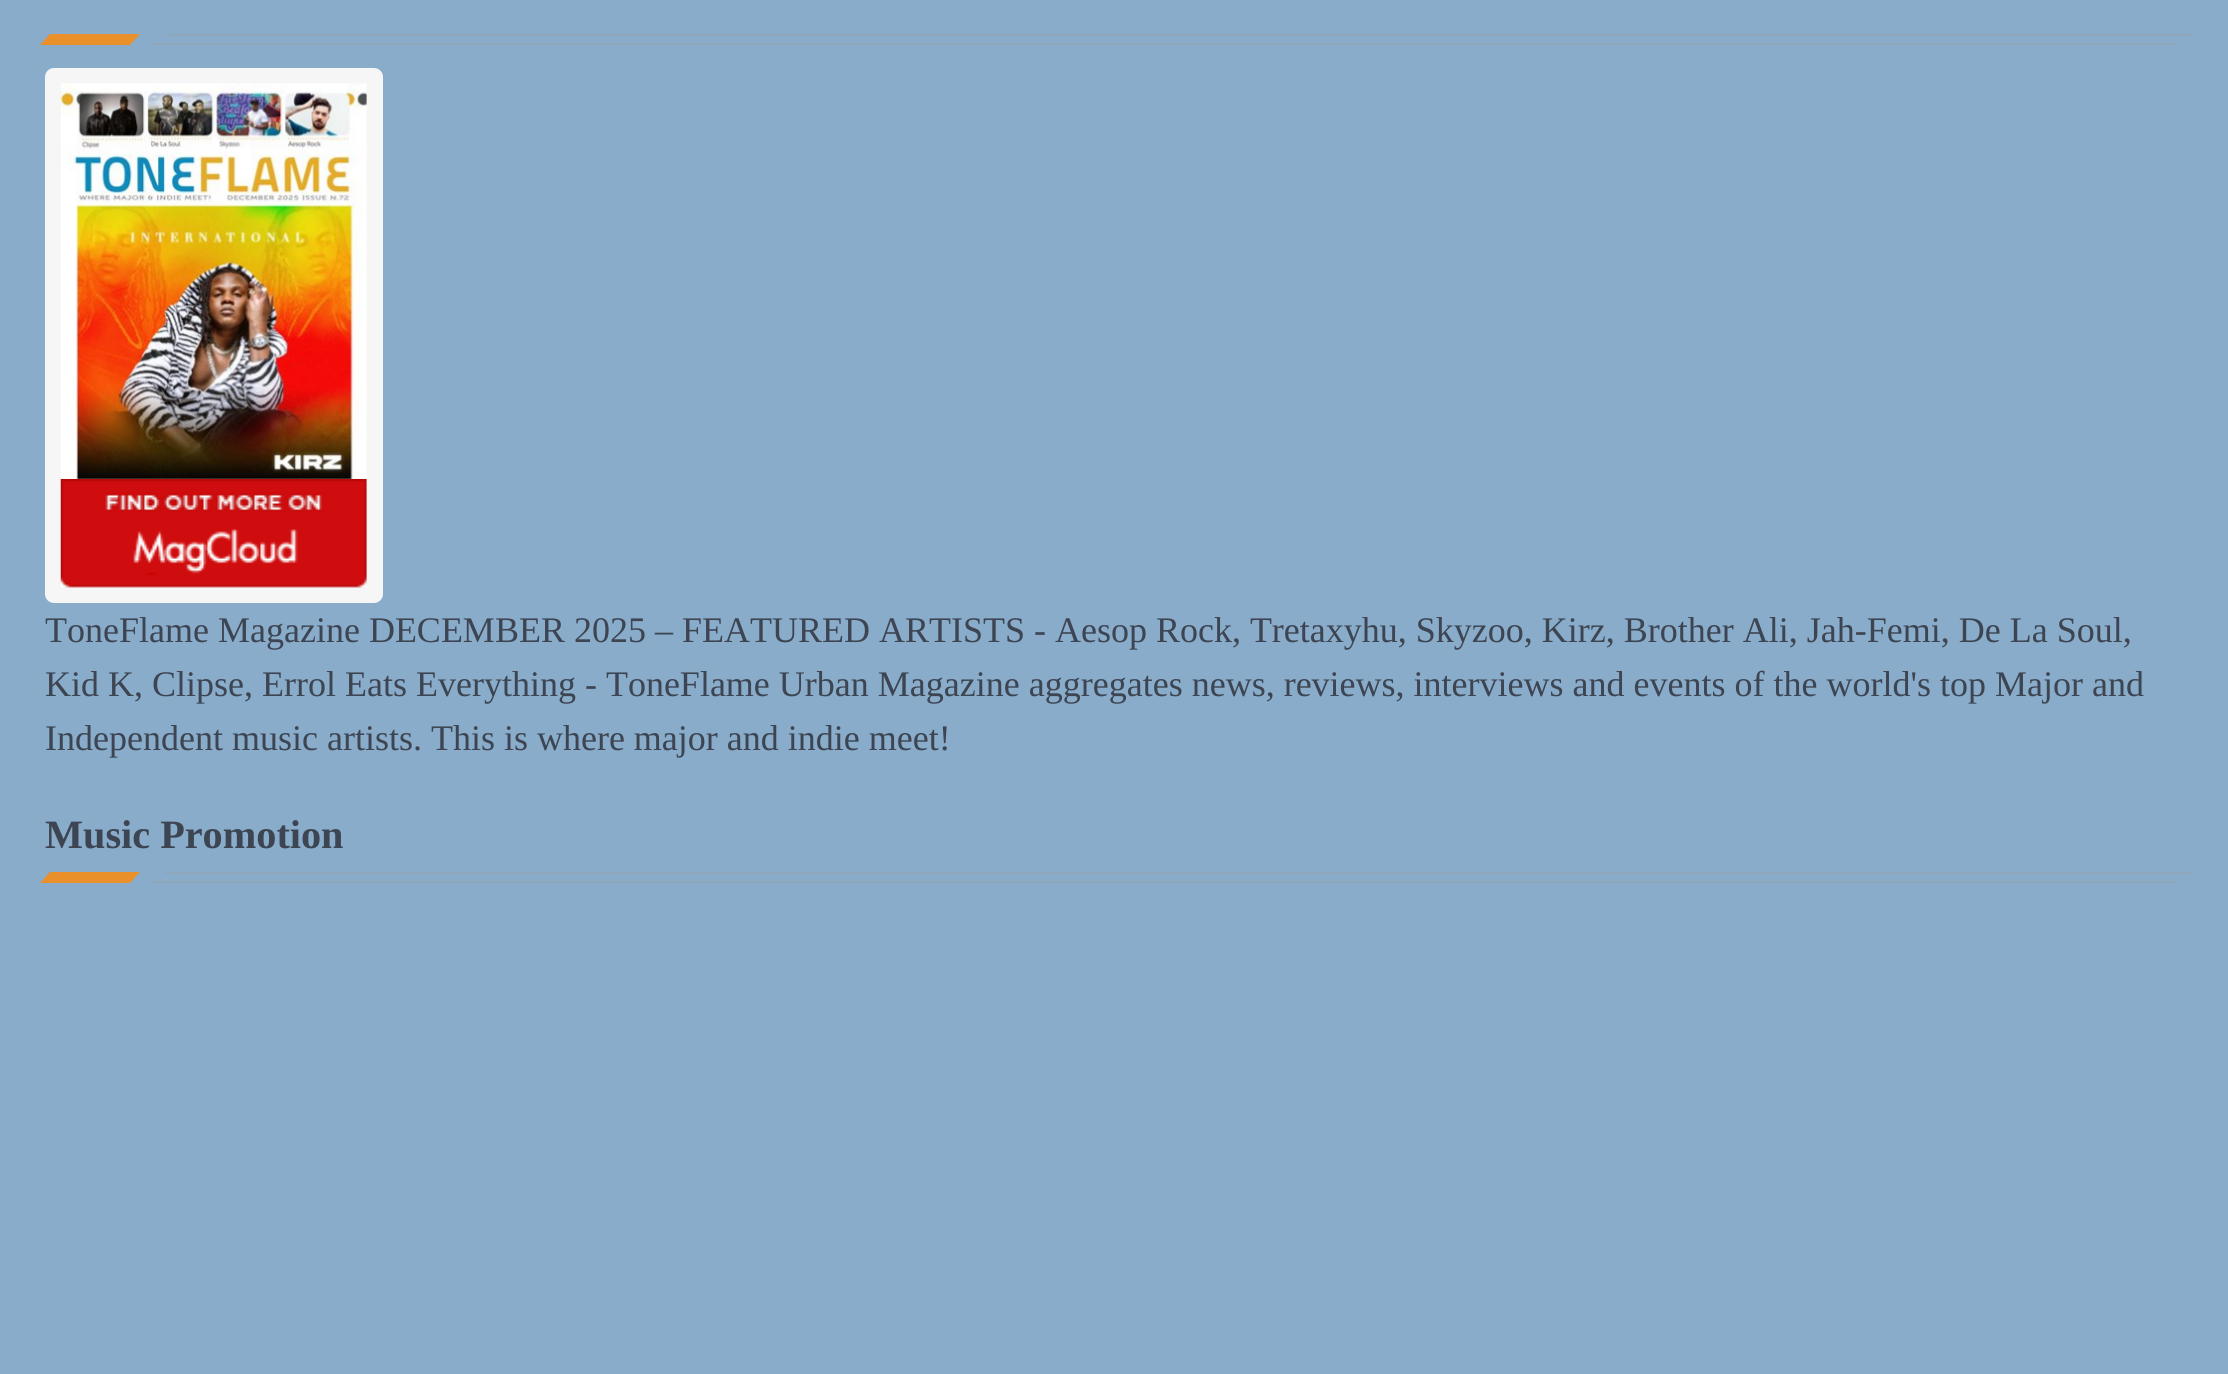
#include <cairo.h>
#include <math.h>
#include <stddef.h>


static void set_color(cairo_t *cr, unsigned color) {
    cairo_set_source_rgb(cr, (color >> 16) / 255.0, (color >> 8 & 255) / 255.0, (color & 255) / 255.0);
}

static void draw_text(cairo_t *cr, double x, double y, const char *s, const char *family, double size, int italic, int bold, unsigned color) {
    cairo_select_font_face(cr, family, italic ? CAIRO_FONT_SLANT_ITALIC : CAIRO_FONT_SLANT_NORMAL,
        bold ? CAIRO_FONT_WEIGHT_BOLD : CAIRO_FONT_WEIGHT_NORMAL);
    cairo_set_font_size(cr, size);
    set_color(cr, color);
    cairo_move_to(cr, x, y);
    cairo_show_text(cr, s);
}

static void rounded_rect(cairo_t *cr, double x, double y, double w, double h, double r) {
    cairo_new_sub_path(cr);
    cairo_arc(cr, x + w - r, y + h - r, r, 0, M_PI / 2);
    cairo_arc(cr, x + r, y + h - r, r, M_PI / 2, M_PI);
    cairo_arc(cr, x + r, y + r, r, M_PI, 1.5 * M_PI);
    cairo_arc(cr, x + w - r, y + r, r, 1.5 * M_PI, 2 * M_PI);
    cairo_close_path(cr);
}

static void draw_image(cairo_t *cr, const char *path, double x, double y, double w, double h) {
    cairo_surface_t *image = cairo_image_surface_create_from_png(path);
    cairo_save(cr);
    cairo_set_source_surface(cr, image, x, y);
    cairo_rectangle(cr, x, y, w, h);
    cairo_fill(cr);
    cairo_restore(cr);
    cairo_surface_destroy(image);
}

int main(void) {
    cairo_surface_t *surface = cairo_image_surface_create(CAIRO_FORMAT_RGB24, 2228, 1374);
    cairo_t *cr = cairo_create(surface);
    cairo_font_options_t *options = cairo_font_options_create();
    cairo_font_options_set_hint_metrics(options, CAIRO_HINT_METRICS_OFF);
    cairo_font_options_set_hint_style(options, CAIRO_HINT_STYLE_NONE);
    cairo_set_font_options(cr, options);
    cairo_set_miter_limit(cr, 4);
    set_color(cr, 0x88ACC9);
    cairo_paint(cr);
    set_color(cr, 0xEA902A);
    cairo_new_path(cr);
    cairo_move_to(cr, 50, 34);
    cairo_line_to(cr, 140, 34);
    cairo_line_to(cr, 130, 45);
    cairo_line_to(cr, 40, 45);
    cairo_close_path(cr);
    cairo_fill(cr);
    set_color(cr, 0x8EA7BB);
    cairo_new_path(cr);
    cairo_move_to(cr, 167, 34);
    cairo_line_to(cr, 2194, 34);
    cairo_line_to(cr, 2191, 36);
    cairo_line_to(cr, 163, 36);
    cairo_close_path(cr);
    cairo_fill(cr);
    cairo_new_path(cr);
    cairo_move_to(cr, 152, 43);
    cairo_line_to(cr, 2179, 43);
    cairo_line_to(cr, 2175, 45);
    cairo_line_to(cr, 148, 45);
    cairo_close_path(cr);
    cairo_fill(cr);
    set_color(cr, 0xF6F6F6);
    rounded_rect(cr, 53, 76, 322, 519, 1);
    cairo_fill_preserve(cr);
    cairo_set_line_width(cr, 16);
    cairo_stroke(cr);
    draw_image(cr, "assets/img1.png", 60, 83, 307, 397);
    draw_image(cr, "assets/img2.png", 60, 479, 307, 109);
    draw_text(cr, 45, 642, "ToneFlame Magazine DECEMBER 2025 – FEATURED ARTISTS - Aesop Rock, Tretaxyhu, Skyzoo, Kirz, Brother Ali, Jah-Femi, De La Soul,", "Liberation Serif", 36, 0, 0, 0x3D4452);
    draw_text(cr, 45, 696, "Kid K, Clipse, Errol Eats Everything - ToneFlame Urban Magazine aggregates news, reviews, interviews and events of the world's top Major and", "Liberation Serif", 36, 0, 0, 0x3D4452);
    draw_text(cr, 45, 750, "Independent music artists. This is where major and indie meet!", "Liberation Serif", 36, 0, 0, 0x3D4452);
    draw_text(cr, 45, 848, "Music Promotion", "Liberation Serif", 40.25, 0, 1, 0x3D4452);
    set_color(cr, 0xEA902A);
    cairo_new_path(cr);
    cairo_move_to(cr, 50, 872);
    cairo_line_to(cr, 140, 872);
    cairo_line_to(cr, 130, 883);
    cairo_line_to(cr, 40, 883);
    cairo_close_path(cr);
    cairo_fill(cr);
    set_color(cr, 0x8EA7BB);
    cairo_new_path(cr);
    cairo_move_to(cr, 167, 872);
    cairo_line_to(cr, 2194, 872);
    cairo_line_to(cr, 2191, 874);
    cairo_line_to(cr, 163, 874);
    cairo_close_path(cr);
    cairo_fill(cr);
    cairo_new_path(cr);
    cairo_move_to(cr, 152, 881);
    cairo_line_to(cr, 2179, 881);
    cairo_line_to(cr, 2175, 883);
    cairo_line_to(cr, 148, 883);
    cairo_close_path(cr);
    cairo_fill(cr);
    cairo_surface_write_to_png(surface, "output.png");
    cairo_font_options_destroy(options);
    cairo_destroy(cr);
    cairo_surface_destroy(surface);
    return 0;
}
